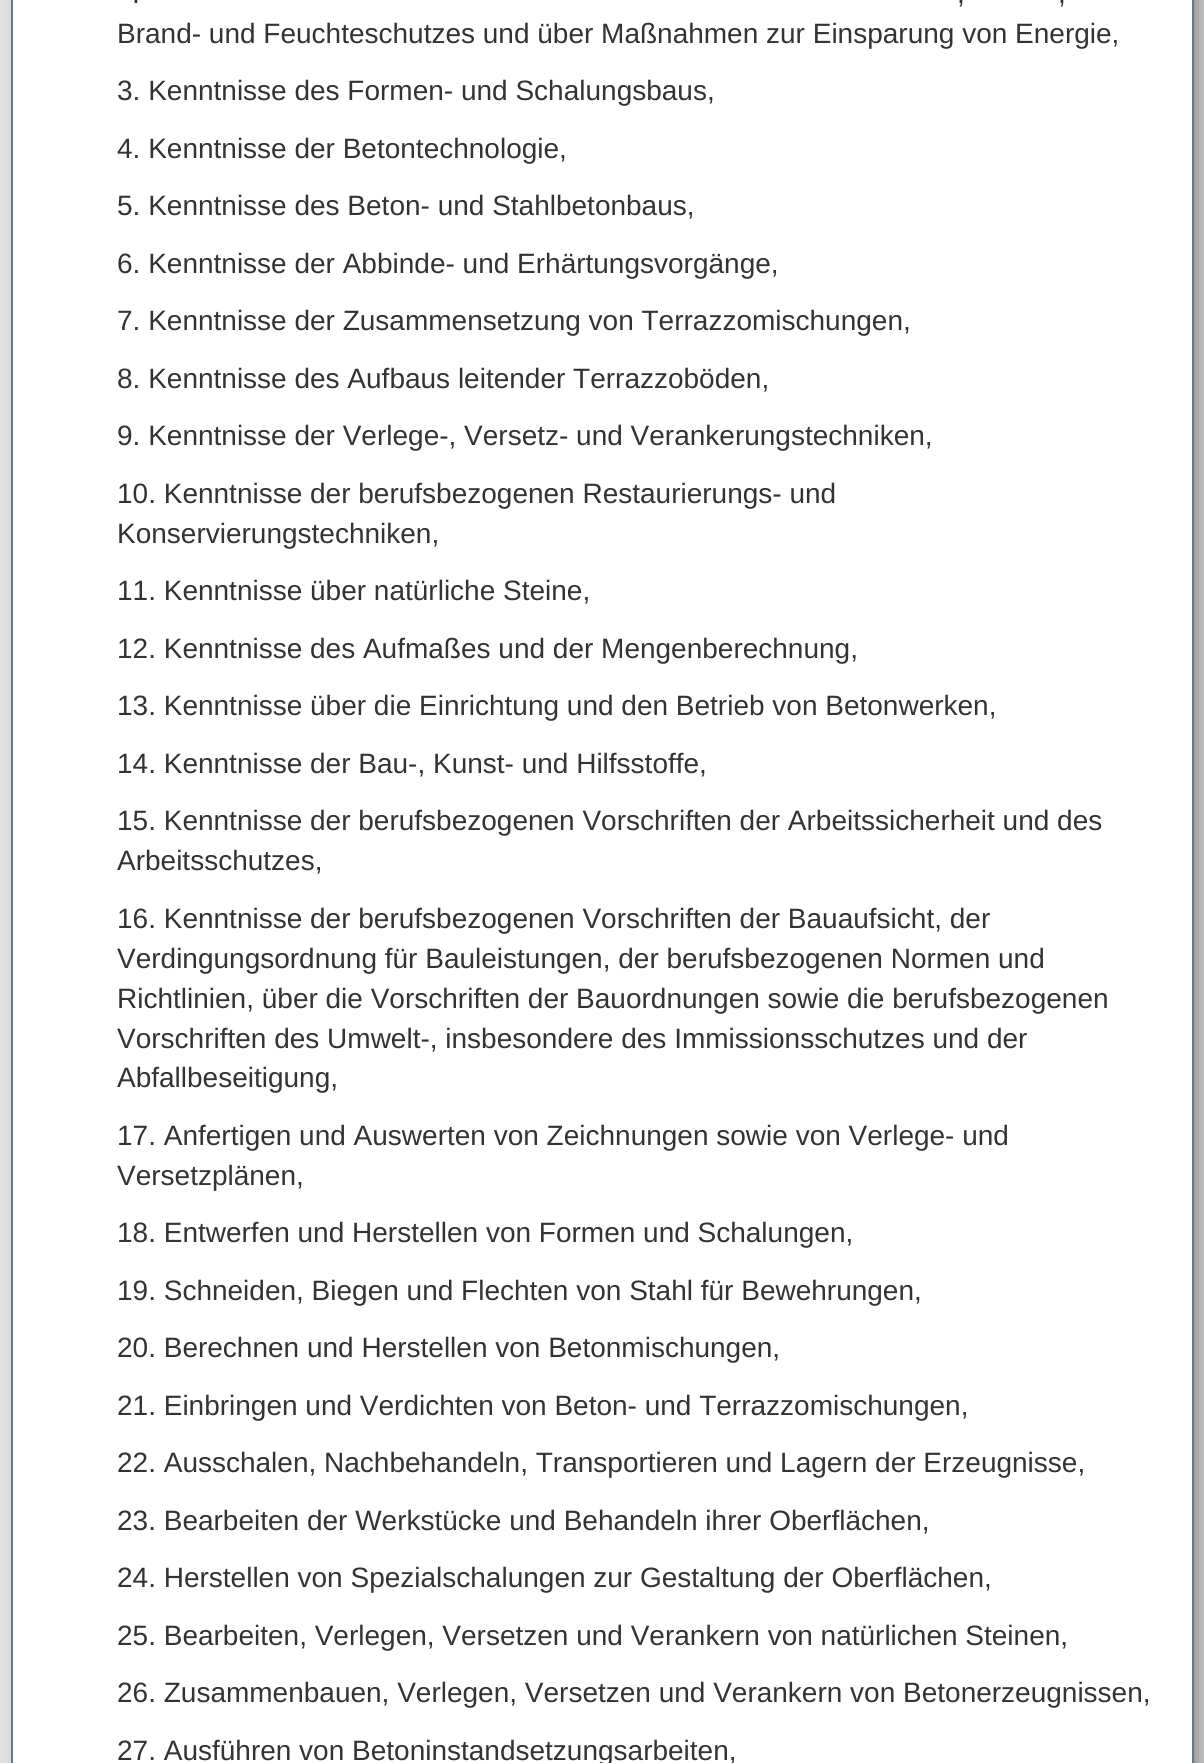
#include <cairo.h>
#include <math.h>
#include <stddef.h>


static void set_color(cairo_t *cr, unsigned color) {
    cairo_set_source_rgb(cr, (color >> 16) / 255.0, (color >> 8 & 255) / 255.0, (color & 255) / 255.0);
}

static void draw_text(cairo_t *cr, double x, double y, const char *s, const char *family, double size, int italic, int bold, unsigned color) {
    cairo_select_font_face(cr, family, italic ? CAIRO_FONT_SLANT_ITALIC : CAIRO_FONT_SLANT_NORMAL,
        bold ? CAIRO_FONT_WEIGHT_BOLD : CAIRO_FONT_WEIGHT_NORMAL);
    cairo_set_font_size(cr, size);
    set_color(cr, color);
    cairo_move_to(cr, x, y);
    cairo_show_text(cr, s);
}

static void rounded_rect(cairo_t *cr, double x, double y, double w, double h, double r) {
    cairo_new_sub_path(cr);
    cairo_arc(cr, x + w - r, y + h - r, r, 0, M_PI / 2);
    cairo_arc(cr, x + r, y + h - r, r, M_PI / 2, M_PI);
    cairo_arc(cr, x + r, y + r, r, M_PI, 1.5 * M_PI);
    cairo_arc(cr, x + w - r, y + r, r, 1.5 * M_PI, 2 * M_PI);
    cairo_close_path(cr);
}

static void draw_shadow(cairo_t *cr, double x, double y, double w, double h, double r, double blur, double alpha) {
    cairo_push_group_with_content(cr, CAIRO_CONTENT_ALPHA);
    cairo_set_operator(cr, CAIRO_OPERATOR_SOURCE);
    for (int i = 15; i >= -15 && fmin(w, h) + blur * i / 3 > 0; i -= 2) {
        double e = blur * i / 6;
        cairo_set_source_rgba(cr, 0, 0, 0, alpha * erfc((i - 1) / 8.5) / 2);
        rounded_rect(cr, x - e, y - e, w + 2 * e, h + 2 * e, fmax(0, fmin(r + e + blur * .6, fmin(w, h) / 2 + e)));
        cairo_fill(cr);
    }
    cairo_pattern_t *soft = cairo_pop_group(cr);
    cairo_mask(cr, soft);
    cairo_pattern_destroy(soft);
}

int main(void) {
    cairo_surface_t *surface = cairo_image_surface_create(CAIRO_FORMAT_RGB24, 1204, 1763);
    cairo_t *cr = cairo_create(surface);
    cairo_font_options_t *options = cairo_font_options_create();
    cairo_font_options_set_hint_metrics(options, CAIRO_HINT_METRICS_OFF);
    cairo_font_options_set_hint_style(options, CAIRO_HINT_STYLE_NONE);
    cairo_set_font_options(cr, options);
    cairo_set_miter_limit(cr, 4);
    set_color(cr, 0xE4E4E4);
    cairo_paint(cr);
    set_color(cr, 0x000000);
    draw_shadow(cr, 28, -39, 1169, 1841, 0, 13, 0.52);
    set_color(cr, 0xFFFFFF);
    cairo_rectangle(cr, 12, -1, 1181, 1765);
    cairo_fill_preserve(cr);
    set_color(cr, 0x607890);
    cairo_stroke(cr);
    draw_text(cr, 132, 3, ".", "Liberation Sans", 28, 0, 0, 0x333333);
    draw_text(cr, 957, 3, ",", "Liberation Sans", 28, 0, 0, 0x333333);
    draw_text(cr, 1058, 3, ",", "Liberation Sans", 28, 0, 0, 0x333333);
    draw_text(cr, 117, 43, "Brand- und Feuchteschutzes und über Maßnahmen zur Einsparung von Energie,", "Liberation Sans", 28, 0, 0, 0x333333);
    draw_text(cr, 117, 100, "3. Kenntnisse des Formen- und Schalungsbaus,", "Liberation Sans", 28, 0, 0, 0x333333);
    draw_text(cr, 117, 158, "4. Kenntnisse der Betontechnologie,", "Liberation Sans", 28, 0, 0, 0x333333);
    draw_text(cr, 117, 215, "5. Kenntnisse des Beton- und Stahlbetonbaus,", "Liberation Sans", 28, 0, 0, 0x333333);
    draw_text(cr, 117, 273, "6. Kenntnisse der Abbinde- und Erhärtungsvorgänge,", "Liberation Sans", 28, 0, 0, 0x333333);
    draw_text(cr, 117, 330, "7. Kenntnisse der Zusammensetzung von Terrazzomischungen,", "Liberation Sans", 28, 0, 0, 0x333333);
    draw_text(cr, 117, 388, "8. Kenntnisse des Aufbaus leitender Terrazzoböden,", "Liberation Sans", 28, 0, 0, 0x333333);
    draw_text(cr, 117, 445, "9. Kenntnisse der Verlege-, Versetz- und Verankerungstechniken,", "Liberation Sans", 28, 0, 0, 0x333333);
    draw_text(cr, 117, 503, "10. Kenntnisse der berufsbezogenen Restaurierungs- und", "Liberation Sans", 28, 0, 0, 0x333333);
    draw_text(cr, 117, 543, "Konservierungstechniken,", "Liberation Sans", 28, 0, 0, 0x333333);
    draw_text(cr, 117, 600, "11. Kenntnisse über natürliche Steine,", "Liberation Sans", 28, 0, 0, 0x333333);
    draw_text(cr, 117, 658, "12. Kenntnisse des Aufmaßes und der Mengenberechnung,", "Liberation Sans", 28, 0, 0, 0x333333);
    draw_text(cr, 117, 715, "13. Kenntnisse über die Einrichtung und den Betrieb von Betonwerken,", "Liberation Sans", 28, 0, 0, 0x333333);
    draw_text(cr, 117, 773, "14. Kenntnisse der Bau-, Kunst- und Hilfsstoffe,", "Liberation Sans", 28, 0, 0, 0x333333);
    draw_text(cr, 117, 830, "15. Kenntnisse der berufsbezogenen Vorschriften der Arbeitssicherheit und des", "Liberation Sans", 28, 0, 0, 0x333333);
    draw_text(cr, 117, 870, "Arbeitsschutzes,", "Liberation Sans", 28, 0, 0, 0x333333);
    draw_text(cr, 117, 928, "16. Kenntnisse der berufsbezogenen Vorschriften der Bauaufsicht, der", "Liberation Sans", 28, 0, 0, 0x333333);
    draw_text(cr, 117, 968, "Verdingungsordnung für Bauleistungen, der berufsbezogenen Normen und", "Liberation Sans", 28, 0, 0, 0x333333);
    draw_text(cr, 117, 1008, "Richtlinien, über die Vorschriften der Bauordnungen sowie die berufsbezogenen", "Liberation Sans", 28, 0, 0, 0x333333);
    draw_text(cr, 117, 1048, "Vorschriften des Umwelt-, insbesondere des Immissionsschutzes und der", "Liberation Sans", 28, 0, 0, 0x333333);
    draw_text(cr, 117, 1087, "Abfallbeseitigung,", "Liberation Sans", 28, 0, 0, 0x333333);
    draw_text(cr, 117, 1145, "17. Anfertigen und Auswerten von Zeichnungen sowie von Verlege- und", "Liberation Sans", 28, 0, 0, 0x333333);
    draw_text(cr, 117, 1185, "Versetzplänen,", "Liberation Sans", 28, 0, 0, 0x333333);
    draw_text(cr, 117, 1242, "18. Entwerfen und Herstellen von Formen und Schalungen,", "Liberation Sans", 28, 0, 0, 0x333333);
    draw_text(cr, 117, 1300, "19. Schneiden, Biegen und Flechten von Stahl für Bewehrungen,", "Liberation Sans", 28, 0, 0, 0x333333);
    draw_text(cr, 117, 1357, "20. Berechnen und Herstellen von Betonmischungen,", "Liberation Sans", 28, 0, 0, 0x333333);
    draw_text(cr, 117, 1415, "21. Einbringen und Verdichten von Beton- und Terrazzomischungen,", "Liberation Sans", 28, 0, 0, 0x333333);
    draw_text(cr, 117, 1472, "22. Ausschalen, Nachbehandeln, Transportieren und Lagern der Erzeugnisse,", "Liberation Sans", 28, 0, 0, 0x333333);
    draw_text(cr, 117, 1530, "23. Bearbeiten der Werkstücke und Behandeln ihrer Oberflächen,", "Liberation Sans", 28, 0, 0, 0x333333);
    draw_text(cr, 117, 1587, "24. Herstellen von Spezialschalungen zur Gestaltung der Oberflächen,", "Liberation Sans", 28, 0, 0, 0x333333);
    draw_text(cr, 117, 1645, "25. Bearbeiten, Verlegen, Versetzen und Verankern von natürlichen Steinen,", "Liberation Sans", 28, 0, 0, 0x333333);
    draw_text(cr, 117, 1702, "26. Zusammenbauen, Verlegen, Versetzen und Verankern von Betonerzeugnissen,", "Liberation Sans", 28, 0, 0, 0x333333);
    draw_text(cr, 117, 1760, "27. Ausführen von Betoninstandsetzungsarbeiten,", "Liberation Sans", 28, 0, 0, 0x333333);
    cairo_surface_write_to_png(surface, "output.png");
    cairo_font_options_destroy(options);
    cairo_destroy(cr);
    cairo_surface_destroy(surface);
    return 0;
}
